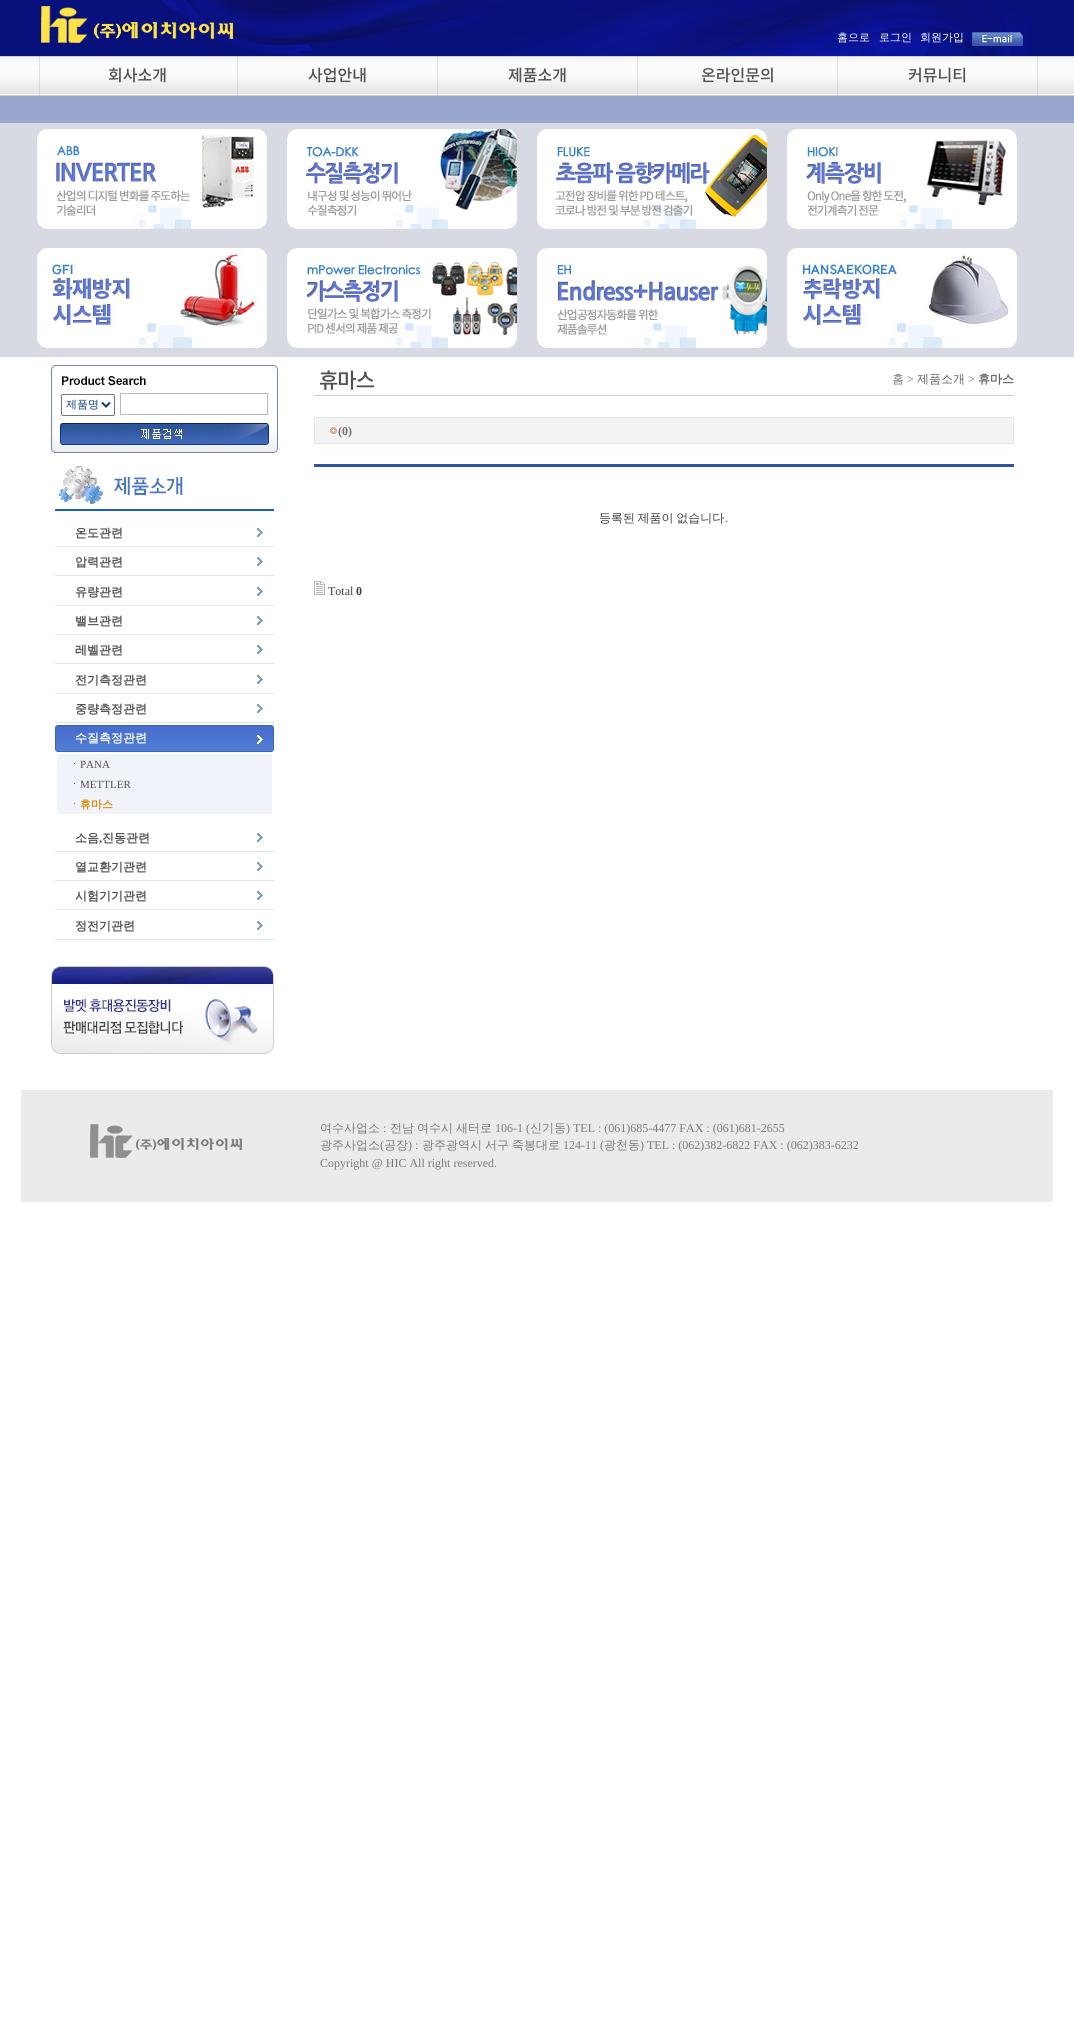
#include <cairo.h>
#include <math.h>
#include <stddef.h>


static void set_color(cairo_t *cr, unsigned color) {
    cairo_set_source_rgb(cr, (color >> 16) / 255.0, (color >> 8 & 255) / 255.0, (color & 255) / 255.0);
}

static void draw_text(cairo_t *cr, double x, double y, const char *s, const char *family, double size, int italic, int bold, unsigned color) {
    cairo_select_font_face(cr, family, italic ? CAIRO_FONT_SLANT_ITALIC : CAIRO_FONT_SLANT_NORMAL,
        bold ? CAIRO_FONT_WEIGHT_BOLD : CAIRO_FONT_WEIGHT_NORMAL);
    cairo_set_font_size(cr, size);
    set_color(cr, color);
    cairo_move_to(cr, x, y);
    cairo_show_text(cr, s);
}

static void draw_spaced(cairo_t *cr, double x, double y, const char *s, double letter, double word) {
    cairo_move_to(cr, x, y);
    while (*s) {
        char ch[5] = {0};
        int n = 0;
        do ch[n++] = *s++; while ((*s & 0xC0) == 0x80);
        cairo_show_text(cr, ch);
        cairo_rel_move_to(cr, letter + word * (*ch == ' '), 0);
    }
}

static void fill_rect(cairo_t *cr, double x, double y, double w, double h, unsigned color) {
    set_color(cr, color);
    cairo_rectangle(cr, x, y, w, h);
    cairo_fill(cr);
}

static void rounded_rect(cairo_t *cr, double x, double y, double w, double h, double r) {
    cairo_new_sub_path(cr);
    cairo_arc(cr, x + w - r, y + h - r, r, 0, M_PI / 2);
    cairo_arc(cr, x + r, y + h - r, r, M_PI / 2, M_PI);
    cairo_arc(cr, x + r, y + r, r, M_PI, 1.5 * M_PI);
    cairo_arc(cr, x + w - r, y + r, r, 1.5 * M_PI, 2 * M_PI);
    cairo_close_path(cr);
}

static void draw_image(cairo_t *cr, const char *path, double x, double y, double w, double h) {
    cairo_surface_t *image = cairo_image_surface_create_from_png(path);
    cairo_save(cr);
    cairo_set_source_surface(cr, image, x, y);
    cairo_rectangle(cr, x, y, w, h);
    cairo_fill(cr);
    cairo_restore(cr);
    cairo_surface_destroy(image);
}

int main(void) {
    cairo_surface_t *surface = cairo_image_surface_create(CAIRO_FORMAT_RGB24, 1074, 2039);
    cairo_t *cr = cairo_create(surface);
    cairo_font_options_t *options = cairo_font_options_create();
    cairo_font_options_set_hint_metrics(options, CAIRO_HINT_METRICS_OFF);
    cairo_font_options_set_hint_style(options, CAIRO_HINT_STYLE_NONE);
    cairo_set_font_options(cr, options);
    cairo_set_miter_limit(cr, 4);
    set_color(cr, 0xFFFFFF);
    cairo_paint(cr);
    draw_image(cr, "assets/img1.png", 0, 0, 1074, 357);
    draw_image(cr, "assets/img2.png", 161, 0, 873, 56);
    draw_image(cr, "assets/img3.png", 41, 6, 192, 37);
    draw_text(cr, 837, 41, "홈으로", "WenQuanYi Zen Hei Medium", 11, 0, 0, 0xFFFFFF);
    draw_text(cr, 879, 41, "로그인", "WenQuanYi Zen Hei Medium", 11, 0, 0, 0xFFFFFF);
    draw_text(cr, 920, 41, "회원가입", "WenQuanYi Zen Hei Medium", 11, 0, 0, 0xFFFFFF);
    draw_image(cr, "assets/img4.png", 972, 32, 51, 14);
    cairo_set_source_rgba(cr, 0, 0, 0, 0.1);
    cairo_rectangle(cr, 39, 56, 1, 40);
    cairo_fill(cr);
    draw_text(cr, 108, 81, "회사소개", "Noto Sans KR Medium", 16, 0, 0, 0x515151);
    cairo_set_source_rgba(cr, 0, 0, 0, 0.1);
    cairo_rectangle(cr, 237, 56, 1, 40);
    cairo_fill(cr);
    draw_text(cr, 308, 81, "사업안내", "Noto Sans KR Medium", 16, 0, 0, 0x515151);
    cairo_set_source_rgba(cr, 0, 0, 0, 0.1);
    cairo_rectangle(cr, 437, 56, 1, 40);
    cairo_fill(cr);
    draw_text(cr, 508, 81, "제품소개", "Noto Sans KR Medium", 16, 0, 0, 0x515151);
    cairo_set_source_rgba(cr, 0, 0, 0, 0.1);
    cairo_rectangle(cr, 637, 56, 1, 40);
    cairo_fill(cr);
    draw_text(cr, 701, 81, "온라인문의", "Noto Sans KR Medium", 16, 0, 0, 0x515151);
    cairo_set_source_rgba(cr, 0, 0, 0, 0.1);
    cairo_rectangle(cr, 837, 56, 1, 40);
    cairo_fill(cr);
    draw_text(cr, 908, 81, "커뮤니티", "Noto Sans KR Medium", 16, 0, 0, 0x515151);
    cairo_set_source_rgba(cr, 0, 0, 0, 0.1);
    cairo_rectangle(cr, 1037, 56, 1, 40);
    cairo_fill(cr);
    fill_rect(cr, 0, 96, 1074, 27, 0x98A6CD);
    draw_image(cr, "assets/img5.png", 37, 129, 230, 100);
    draw_image(cr, "assets/img6.png", 287, 129, 230, 100);
    draw_image(cr, "assets/img7.png", 537, 129, 230, 100);
    draw_image(cr, "assets/img8.png", 787, 129, 230, 100);
    draw_image(cr, "assets/img9.png", 37, 248, 230, 100);
    draw_image(cr, "assets/img10.png", 287, 248, 230, 100);
    draw_image(cr, "assets/img11.png", 537, 248, 230, 100);
    draw_image(cr, "assets/img12.png", 787, 248, 230, 100);
    draw_image(cr, "assets/img13.png", 51, 365, 227, 88);
    rounded_rect(cr, 61.5, 394.5, 53, 21, 1.5);
    set_color(cr, 0x767676);
    cairo_set_line_width(cr, 1);
    cairo_stroke(cr);
    cairo_new_path(cr);
    cairo_move_to(cr, 102, 402.5);
    cairo_line_to(cr, 106, 406.5);
    cairo_line_to(cr, 110, 402.5);
    set_color(cr, 0x0F377F);
    cairo_set_line_width(cr, 2);
    cairo_stroke(cr);
    draw_text(cr, 66, 408, "제품명", "WenQuanYi Zen Hei Medium", 11, 0, 0, 0x0F377F);
    cairo_rectangle(cr, 120.5, 393.5, 147, 21);
    set_color(cr, 0xBABABA);
    cairo_set_line_width(cr, 1);
    cairo_stroke(cr);
    draw_image(cr, "assets/img14.png", 60, 423, 209, 22);
    draw_image(cr, "assets/img15.png", 55, 466, 219, 45);
    draw_image(cr, "assets/img16.png", 55, 528, 219, 19);
    draw_text(cr, 75, 537, "온도관련", "WenQuanYi Zen Hei", 12, 0, 1, 0x515151);
    draw_image(cr, "assets/img16.png", 55, 557, 219, 19);
    draw_text(cr, 75, 566, "압력관련", "WenQuanYi Zen Hei", 12, 0, 1, 0x515151);
    draw_image(cr, "assets/img16.png", 55, 587, 219, 19);
    draw_text(cr, 75, 596, "유량관련", "WenQuanYi Zen Hei", 12, 0, 1, 0x515151);
    draw_image(cr, "assets/img16.png", 55, 616, 219, 19);
    draw_text(cr, 75, 625, "밸브관련", "WenQuanYi Zen Hei", 12, 0, 1, 0x515151);
    draw_image(cr, "assets/img16.png", 55, 645, 219, 19);
    draw_text(cr, 75, 654, "레벨관련", "WenQuanYi Zen Hei", 12, 0, 1, 0x515151);
    draw_image(cr, "assets/img16.png", 55, 675, 219, 19);
    draw_text(cr, 75, 684, "전기측정관련", "WenQuanYi Zen Hei", 12, 0, 1, 0x515151);
    draw_image(cr, "assets/img16.png", 55, 704, 219, 19);
    draw_text(cr, 75, 713, "중량측정관련", "WenQuanYi Zen Hei", 12, 0, 1, 0x515151);
    draw_image(cr, "assets/img17.png", 55, 725, 219, 27);
    draw_text(cr, 75, 742, "수질측정관련", "WenQuanYi Zen Hei", 12, 0, 1, 0xFFFFFF);
    fill_rect(cr, 57, 754, 215, 60, 0xF0F3F9);
    draw_text(cr, 69, 768, "ㆍ", "WenQuanYi Zen Hei Medium", 11, 0, 0, 0x515151);
    draw_text(cr, 80, 768, "PANA", "Liberation Serif", 11, 0, 0, 0x515151);
    draw_text(cr, 69, 788, "ㆍ", "WenQuanYi Zen Hei Medium", 11, 0, 0, 0x515151);
    draw_text(cr, 80, 788, "METTLER", "Liberation Serif", 11, 0, 0, 0x515151);
    draw_text(cr, 69, 808, "ㆍ휴마스", "WenQuanYi Zen Hei", 11, 0, 1, 0xE08900);
    draw_image(cr, "assets/img16.png", 55, 833, 219, 19);
    draw_text(cr, 75, 842, "소음", "WenQuanYi Zen Hei", 12, 0, 1, 0x515151);
    draw_text(cr, 99, 842, ",", "Liberation Serif", 12, 0, 1, 0x515151);
    draw_text(cr, 102, 842, "진동관련", "WenQuanYi Zen Hei", 12, 0, 1, 0x515151);
    draw_image(cr, "assets/img16.png", 55, 862, 219, 19);
    draw_text(cr, 75, 871, "열교환기관련", "WenQuanYi Zen Hei", 12, 0, 1, 0x515151);
    draw_image(cr, "assets/img16.png", 55, 891, 219, 19);
    draw_text(cr, 75, 900, "시험기기관련", "WenQuanYi Zen Hei", 12, 0, 1, 0x515151);
    draw_image(cr, "assets/img16.png", 55, 921, 219, 19);
    draw_text(cr, 75, 930, "정전기관련", "WenQuanYi Zen Hei", 12, 0, 1, 0x515151);
    draw_image(cr, "assets/img18.png", 51, 966, 223, 88);
    cairo_select_font_face(cr, "Noto Sans KR Medium", CAIRO_FONT_SLANT_NORMAL, CAIRO_FONT_WEIGHT_NORMAL);
    cairo_set_font_size(cr, 21);
    draw_spaced(cr, 319, 388, "휴마스", -1, 0);
    draw_text(cr, 892, 383, "홈", "WenQuanYi Zen Hei Medium", 12, 0, 0, 0x797979);
    draw_text(cr, 907, 383, ">", "Liberation Serif", 12, 0, 0, 0x666666);
    draw_text(cr, 917, 383, "제품소개", "WenQuanYi Zen Hei Medium", 12, 0, 0, 0x666666);
    draw_text(cr, 968, 383, ">", "Liberation Serif", 12, 0, 0, 0x666666);
    draw_text(cr, 978, 383, "휴마스", "WenQuanYi Zen Hei", 12, 0, 1, 0x666666);
    fill_rect(cr, 314, 395, 700, 1, 0xCFCDCD);
    set_color(cr, 0xF3F3F3);
    cairo_rectangle(cr, 314.5, 417.5, 699, 26);
    cairo_fill_preserve(cr);
    set_color(cr, 0xE5E5E5);
    cairo_stroke(cr);
    draw_image(cr, "assets/img19.png", 330, 427, 7, 7);
    draw_text(cr, 338, 435, "(0)", "Liberation Serif", 12, 0, 1, 0x6F6F6F);
    fill_rect(cr, 314, 464, 700, 3, 0x2F549C);
    cairo_select_font_face(cr, "WenQuanYi Zen Hei Medium", CAIRO_FONT_SLANT_NORMAL, CAIRO_FONT_WEIGHT_NORMAL);
    set_color(cr, 0x404040);
    draw_spaced(cr, 599, 522, "등록된 제품이 없습니다", 0, -1);
    draw_text(cr, 725, 522, ".", "Liberation Serif", 12, 0, 0, 0x404040);
    draw_image(cr, "assets/img20.png", 314, 581, 11, 14);
    draw_text(cr, 328, 595, "Total", "Liberation Serif", 12, 0, 0, 0x404040);
    draw_text(cr, 356, 595, "0", "Liberation Serif", 12, 0, 1, 0x404040);
    fill_rect(cr, 21, 1090, 1032, 112, 0xEBEBEB);
    draw_image(cr, "assets/img21.png", 90, 1124, 152, 34);
    draw_text(cr, 320, 1132, "여수사업소", "WenQuanYi Zen Hei Medium", 12, 0, 0, 0x797979);
    draw_text(cr, 383, 1132, ":", "Liberation Serif", 12, 0, 0, 0x797979);
    draw_text(cr, 390, 1132, "전남", "WenQuanYi Zen Hei Medium", 12, 0, 0, 0x797979);
    draw_text(cr, 417, 1132, "여수시", "WenQuanYi Zen Hei Medium", 12, 0, 0, 0x797979);
    draw_text(cr, 456, 1132, "새터로", "WenQuanYi Zen Hei Medium", 12, 0, 0, 0x797979);
    draw_text(cr, 495, 1132, "106-1 (", "Liberation Serif", 12, 0, 0, 0x797979);
    draw_text(cr, 530, 1132, "신기동", "WenQuanYi Zen Hei Medium", 12, 0, 0, 0x797979);
    draw_text(cr, 566, 1132, ") TEL : (061)685-4477 FAX : (061)681-2655", "Liberation Serif", 12, 0, 0, 0x797979);
    draw_text(cr, 320, 1149, "광주사업소", "WenQuanYi Zen Hei Medium", 12, 0, 0, 0x797979);
    draw_text(cr, 380, 1149, "(", "Liberation Serif", 12, 0, 0, 0x797979);
    draw_text(cr, 384, 1149, "공장", "WenQuanYi Zen Hei Medium", 12, 0, 0, 0x797979);
    draw_text(cr, 408, 1149, ") :", "Liberation Serif", 12, 0, 0, 0x797979);
    draw_text(cr, 422, 1149, "광주광역시", "WenQuanYi Zen Hei Medium", 12, 0, 0, 0x797979);
    draw_text(cr, 485, 1149, "서구", "WenQuanYi Zen Hei Medium", 12, 0, 0, 0x797979);
    draw_text(cr, 512, 1149, "죽봉대로", "WenQuanYi Zen Hei Medium", 12, 0, 0, 0x797979);
    draw_text(cr, 563, 1149, "124-11 (", "Liberation Serif", 12, 0, 0, 0x797979);
    draw_text(cr, 604, 1149, "광천동", "WenQuanYi Zen Hei Medium", 12, 0, 0, 0x797979);
    draw_text(cr, 640, 1149, ") TEL : (062)382-6822 FAX : (062)383-6232", "Liberation Serif", 12, 0, 0, 0x797979);
    draw_text(cr, 320, 1167, "Copyright @ HIC All right reserved.", "Liberation Serif", 12, 0, 0, 0x797979);
    cairo_surface_write_to_png(surface, "output.png");
    cairo_font_options_destroy(options);
    cairo_destroy(cr);
    cairo_surface_destroy(surface);
    return 0;
}
